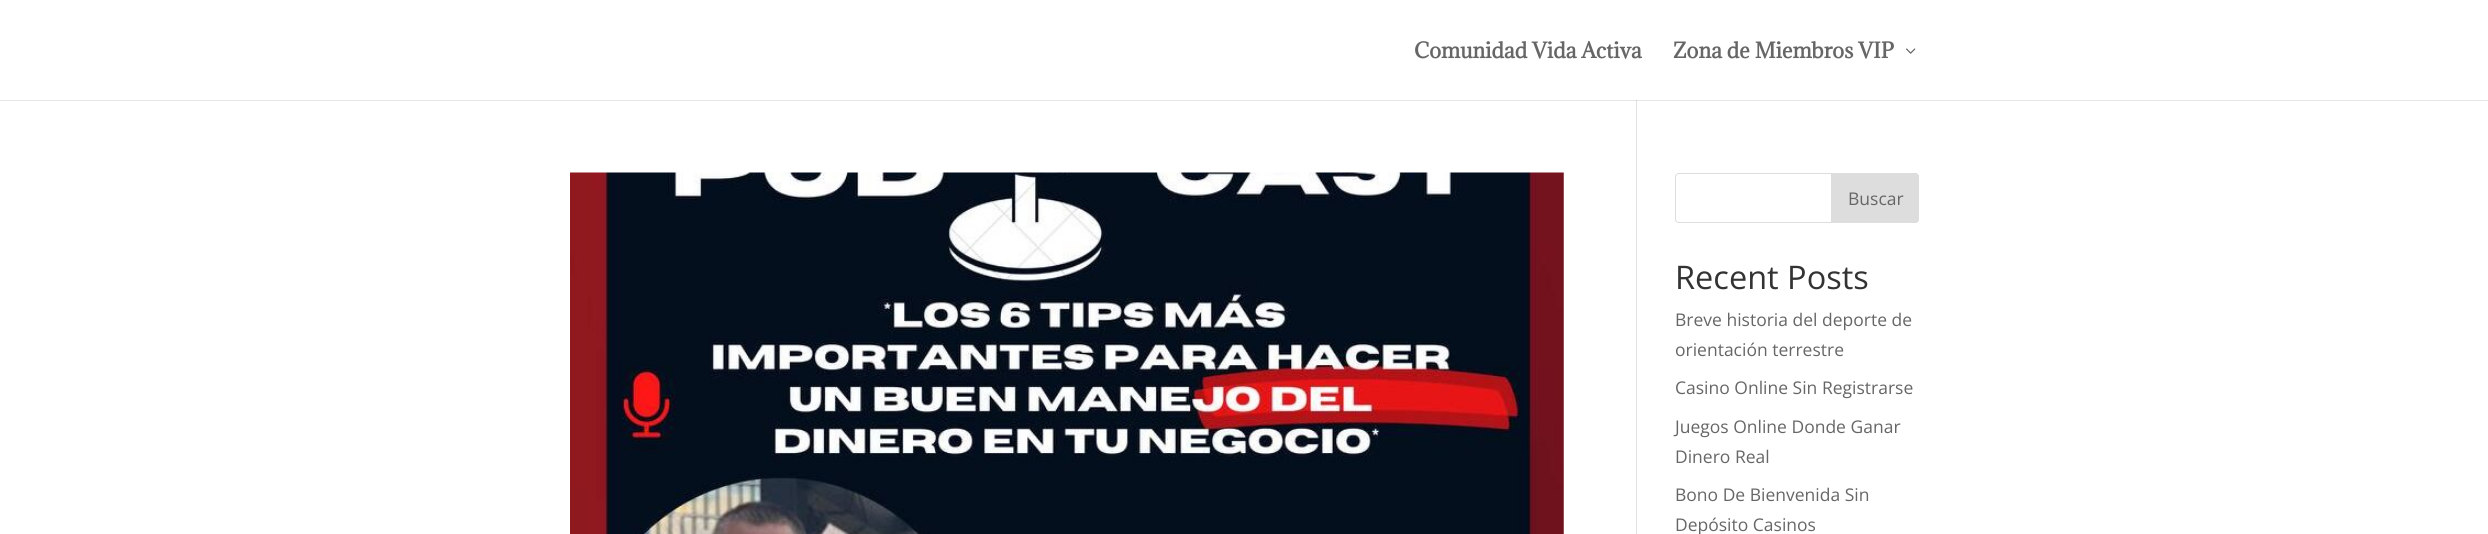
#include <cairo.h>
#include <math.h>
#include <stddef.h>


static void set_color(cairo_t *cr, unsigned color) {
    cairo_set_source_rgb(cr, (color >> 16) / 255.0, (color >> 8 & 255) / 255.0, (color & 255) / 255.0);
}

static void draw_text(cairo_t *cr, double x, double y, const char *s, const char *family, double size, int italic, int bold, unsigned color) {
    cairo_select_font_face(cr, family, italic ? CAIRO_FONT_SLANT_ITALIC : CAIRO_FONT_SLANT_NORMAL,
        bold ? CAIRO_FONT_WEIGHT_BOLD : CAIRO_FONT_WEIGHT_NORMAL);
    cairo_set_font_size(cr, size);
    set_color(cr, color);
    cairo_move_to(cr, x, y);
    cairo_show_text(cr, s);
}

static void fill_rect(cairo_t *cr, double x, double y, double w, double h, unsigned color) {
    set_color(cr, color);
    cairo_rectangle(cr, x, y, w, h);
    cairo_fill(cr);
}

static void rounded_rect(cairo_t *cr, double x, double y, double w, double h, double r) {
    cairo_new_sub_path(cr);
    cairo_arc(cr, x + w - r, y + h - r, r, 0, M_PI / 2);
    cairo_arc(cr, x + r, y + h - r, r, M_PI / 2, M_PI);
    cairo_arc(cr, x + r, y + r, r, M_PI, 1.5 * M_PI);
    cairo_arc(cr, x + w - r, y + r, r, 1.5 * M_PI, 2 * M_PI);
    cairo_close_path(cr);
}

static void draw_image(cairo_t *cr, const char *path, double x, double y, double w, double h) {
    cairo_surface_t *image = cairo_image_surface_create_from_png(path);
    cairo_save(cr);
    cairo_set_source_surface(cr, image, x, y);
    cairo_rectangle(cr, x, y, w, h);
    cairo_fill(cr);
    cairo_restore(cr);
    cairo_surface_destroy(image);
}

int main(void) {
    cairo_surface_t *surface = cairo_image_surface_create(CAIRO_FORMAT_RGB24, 2488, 534);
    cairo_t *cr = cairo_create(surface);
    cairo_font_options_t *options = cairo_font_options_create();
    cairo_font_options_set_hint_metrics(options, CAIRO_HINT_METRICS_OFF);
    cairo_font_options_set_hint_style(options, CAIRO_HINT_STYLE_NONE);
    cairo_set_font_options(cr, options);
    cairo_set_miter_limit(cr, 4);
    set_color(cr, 0xFFFFFF);
    cairo_paint(cr);
    fill_rect(cr, 1636, 100, 1, 434, 0xE2E2E2);
    cairo_set_source_rgba(cr, 0, 0, 0, 0.1);
    cairo_new_path(cr);
    cairo_move_to(cr, 0, 100);
    cairo_line_to(cr, 0, 101);
    cairo_line_to(cr, 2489, 101);
    cairo_line_to(cr, 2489, 1);
    cairo_line_to(cr, 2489, 100);
    cairo_close_path(cr);
    cairo_fill(cr);
    draw_text(cr, 1414, 58, "Comunidad Vida Activa", "Adamina", 20, 0, 1, 0x666666);
    draw_text(cr, 1673, 58, "Zona de Miembros VIP", "Adamina", 20, 0, 1, 0x666666);
    draw_image(cr, "assets/img1.png", 1906, 48, 10, 6);
    draw_image(cr, "assets/img2.png", 570, 172, 994, 362);
    rounded_rect(cr, 1675.5, 173.5, 243, 49, 3.5);
    set_color(cr, 0xDDDDDD);
    cairo_set_line_width(cr, 1);
    cairo_stroke(cr);
    cairo_new_path(cr);
    cairo_move_to(cr, 1831.5, 173.5);
    cairo_line_to(cr, 1915, 173.5);
    cairo_curve_to(cr, 1917, 173.5, 1918.5, 175, 1918.5, 177);
    cairo_line_to(cr, 1918.5, 219);
    cairo_curve_to(cr, 1918.5, 221, 1917, 222.5, 1915, 222.5);
    cairo_line_to(cr, 1831.5, 222.5);
    cairo_close_path(cr);
    cairo_fill_preserve(cr);
    cairo_stroke(cr);
    draw_text(cr, 1848, 205, "Buscar", "Open Sans", 17.5, 0, 0, 0x666666);
    draw_text(cr, 1675, 289, "Recent Posts", "Open Sans", 32.5, 0, 0, 0x333333);
    draw_text(cr, 1675, 326, "Breve historia del deporte de", "Open Sans", 17.5, 0, 0, 0x666666);
    draw_text(cr, 1675, 356, "orientación terrestre", "Open Sans", 17.5, 0, 0, 0x666666);
    draw_text(cr, 1675, 394, "Casino Online Sin Registrarse", "Open Sans", 17.5, 0, 0, 0x666666);
    draw_text(cr, 1675, 433, "Juegos Online Donde Ganar", "Open Sans", 17.5, 0, 0, 0x666666);
    draw_text(cr, 1675, 463, "Dinero Real", "Open Sans", 17.5, 0, 0, 0x666666);
    draw_text(cr, 1675, 501, "Bono De Bienvenida Sin", "Open Sans", 17.5, 0, 0, 0x666666);
    draw_text(cr, 1675, 531, "Depósito Casinos", "Open Sans", 17.5, 0, 0, 0x666666);
    cairo_surface_write_to_png(surface, "output.png");
    cairo_font_options_destroy(options);
    cairo_destroy(cr);
    cairo_surface_destroy(surface);
    return 0;
}
